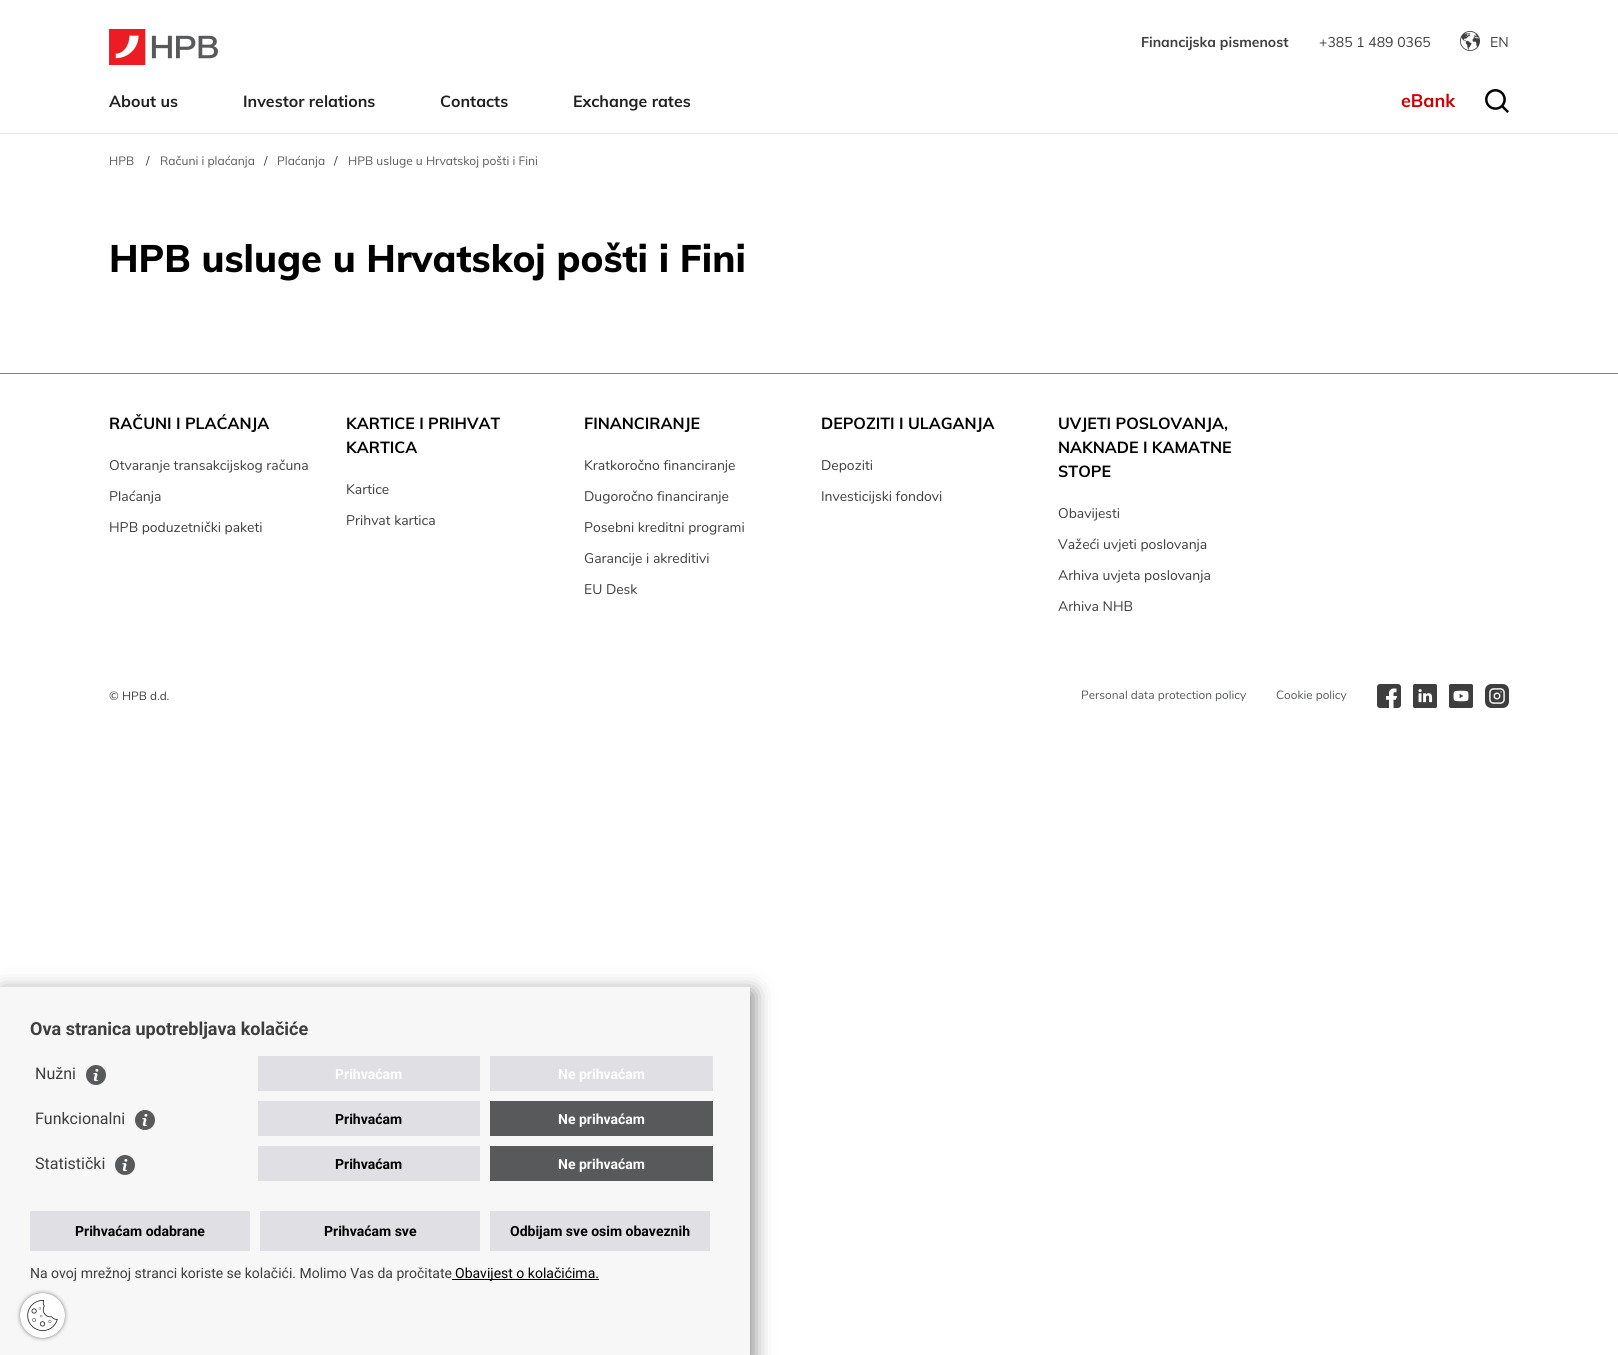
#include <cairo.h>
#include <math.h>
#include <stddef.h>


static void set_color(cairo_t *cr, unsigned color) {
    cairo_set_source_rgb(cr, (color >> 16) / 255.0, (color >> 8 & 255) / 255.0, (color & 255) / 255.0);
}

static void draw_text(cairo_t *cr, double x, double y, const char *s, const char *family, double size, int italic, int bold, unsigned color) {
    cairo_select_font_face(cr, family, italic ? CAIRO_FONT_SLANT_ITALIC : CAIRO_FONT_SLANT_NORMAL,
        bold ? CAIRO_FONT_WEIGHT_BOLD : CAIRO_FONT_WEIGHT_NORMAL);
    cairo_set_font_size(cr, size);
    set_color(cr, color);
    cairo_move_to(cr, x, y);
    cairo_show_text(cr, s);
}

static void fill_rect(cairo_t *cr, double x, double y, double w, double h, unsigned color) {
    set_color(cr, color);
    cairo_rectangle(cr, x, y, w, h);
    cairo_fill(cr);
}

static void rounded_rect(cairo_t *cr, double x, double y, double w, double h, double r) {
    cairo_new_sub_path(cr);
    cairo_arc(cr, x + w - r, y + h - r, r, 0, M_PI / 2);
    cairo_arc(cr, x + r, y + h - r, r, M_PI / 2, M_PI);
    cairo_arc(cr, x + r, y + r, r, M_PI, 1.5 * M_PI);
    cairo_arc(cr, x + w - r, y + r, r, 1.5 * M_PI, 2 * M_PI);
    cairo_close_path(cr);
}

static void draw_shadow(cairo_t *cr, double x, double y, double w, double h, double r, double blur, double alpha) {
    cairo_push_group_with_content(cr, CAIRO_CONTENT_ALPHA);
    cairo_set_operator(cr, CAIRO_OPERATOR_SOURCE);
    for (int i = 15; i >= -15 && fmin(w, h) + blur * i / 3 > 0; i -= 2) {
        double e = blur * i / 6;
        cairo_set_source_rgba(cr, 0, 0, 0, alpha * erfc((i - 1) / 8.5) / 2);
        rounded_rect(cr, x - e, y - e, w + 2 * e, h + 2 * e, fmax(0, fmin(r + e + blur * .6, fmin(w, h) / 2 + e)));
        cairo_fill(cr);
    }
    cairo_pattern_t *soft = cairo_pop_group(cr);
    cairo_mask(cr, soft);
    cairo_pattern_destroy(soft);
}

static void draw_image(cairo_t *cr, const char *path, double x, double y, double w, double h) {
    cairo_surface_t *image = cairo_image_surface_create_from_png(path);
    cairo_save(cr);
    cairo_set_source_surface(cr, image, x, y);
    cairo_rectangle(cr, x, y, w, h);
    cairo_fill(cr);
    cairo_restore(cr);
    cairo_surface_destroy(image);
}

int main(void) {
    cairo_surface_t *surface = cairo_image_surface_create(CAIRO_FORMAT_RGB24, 1618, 1355);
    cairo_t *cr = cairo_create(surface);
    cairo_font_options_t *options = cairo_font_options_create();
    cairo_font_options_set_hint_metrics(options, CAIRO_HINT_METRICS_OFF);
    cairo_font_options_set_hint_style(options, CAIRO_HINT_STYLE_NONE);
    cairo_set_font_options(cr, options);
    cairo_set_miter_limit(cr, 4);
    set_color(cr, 0xFFFFFF);
    cairo_paint(cr);
    draw_text(cr, 1141, 47, "Financijska pismenost", "Muli", 14, 0, 1, 0x3E3E3E);
    draw_text(cr, 1319, 47, "+385 1 489 0365", "Muli", 14, 0, 0, 0x3E3E3E);
    draw_image(cr, "assets/img1.png", 1460, 31, 20, 20);
    draw_text(cr, 1490, 47, "EN", "Muli", 14, 0, 0, 0x3E3E3E);
    fill_rect(cr, 0, 133, 1618, 1, 0xE6E7E8);
    draw_image(cr, "assets/img2.png", 109, 29, 109, 36);
    draw_text(cr, 109, 107, "About us", "Muli", 16, 0, 1, 0x212020);
    draw_text(cr, 243, 107, "Investor relations", "Muli", 16, 0, 1, 0x212020);
    draw_text(cr, 440, 107, "Contacts", "Muli", 16, 0, 1, 0x212020);
    draw_text(cr, 573, 107, "Exchange rates", "Muli", 16, 0, 1, 0x212020);
    draw_text(cr, 1401, 107, "eBank", "Muli", 18, 0, 1, 0xCC0000);
    draw_image(cr, "assets/img3.png", 1485, 89, 24, 24);
    draw_text(cr, 109, 165, "HPB", "Muli", 12, 0, 0, 0x58595B);
    draw_text(cr, 146, 165, "/", "Muli", 12, 0, 0, 0x3E3E3E);
    draw_text(cr, 160, 165, "Računi i plaćanja", "Muli", 12, 0, 0, 0x58595B);
    draw_text(cr, 264, 165, "/", "Muli", 12, 0, 0, 0x3E3E3E);
    draw_text(cr, 277, 165, "Plaćanja", "Muli", 12, 0, 0, 0x58595B);
    draw_text(cr, 334, 165, "/", "Muli", 12, 0, 0, 0x3E3E3E);
    draw_text(cr, 348, 165, "HPB usluge u Hrvatskoj pošti i Fini", "Muli", 12, 0, 0, 0x58595B);
    draw_text(cr, 109, 272, "HPB usluge u Hrvatskoj pošti i Fini", "Muli ExtraBold", 38, 0, 0, 0x000000);
    fill_rect(cr, 0, 373, 1618, 1, 0x848484);
    draw_text(cr, 109, 429, "RAČUNI I PLAĆANJA", "Muli", 16, 0, 1, 0x000000);
    draw_text(cr, 109, 470, "Otvaranje transakcijskog računa", "Nunito", 14, 0, 0, 0x3E3E3E);
    draw_text(cr, 109, 501, "Plaćanja", "Nunito", 14, 0, 0, 0x3E3E3E);
    draw_text(cr, 109, 532, "HPB poduzetnički paketi", "Nunito", 14, 0, 0, 0x3E3E3E);
    draw_text(cr, 346, 429, "KARTICE I PRIHVAT", "Muli", 16, 0, 1, 0x000000);
    draw_text(cr, 346, 453, "KARTICA", "Muli", 16, 0, 1, 0x000000);
    draw_text(cr, 346, 494, "Kartice", "Nunito", 14, 0, 0, 0x3E3E3E);
    draw_text(cr, 346, 525, "Prihvat kartica", "Nunito", 14, 0, 0, 0x3E3E3E);
    draw_text(cr, 584, 429, "FINANCIRANJE", "Muli", 16, 0, 1, 0x000000);
    draw_text(cr, 584, 470, "Kratkoročno financiranje", "Nunito", 14, 0, 0, 0x3E3E3E);
    draw_text(cr, 584, 501, "Dugoročno financiranje", "Nunito", 14, 0, 0, 0x3E3E3E);
    draw_text(cr, 584, 532, "Posebni kreditni programi", "Nunito", 14, 0, 0, 0x3E3E3E);
    draw_text(cr, 584, 563, "Garancije i akreditivi", "Nunito", 14, 0, 0, 0x3E3E3E);
    draw_text(cr, 584, 594, "EU Desk", "Nunito", 14, 0, 0, 0x3E3E3E);
    draw_text(cr, 821, 429, "DEPOZITI I ULAGANJA", "Muli", 16, 0, 1, 0x000000);
    draw_text(cr, 821, 470, "Depoziti", "Nunito", 14, 0, 0, 0x3E3E3E);
    draw_text(cr, 821, 501, "Investicijski fondovi", "Nunito", 14, 0, 0, 0x3E3E3E);
    draw_text(cr, 1058, 429, "UVJETI POSLOVANJA,", "Muli", 16, 0, 1, 0x000000);
    draw_text(cr, 1058, 453, "NAKNADE I KAMATNE", "Muli", 16, 0, 1, 0x000000);
    draw_text(cr, 1058, 477, "STOPE", "Muli", 16, 0, 1, 0x000000);
    draw_text(cr, 1058, 518, "Obavijesti", "Nunito", 14, 0, 0, 0x3E3E3E);
    draw_text(cr, 1058, 549, "Važeći uvjeti poslovanja", "Nunito", 14, 0, 0, 0x3E3E3E);
    draw_text(cr, 1058, 580, "Arhiva uvjeta poslovanja", "Nunito", 14, 0, 0, 0x3E3E3E);
    draw_text(cr, 1058, 611, "Arhiva NHB", "Nunito", 14, 0, 0, 0x3E3E3E);
    draw_text(cr, 109, 700, "© HPB d.d.", "Nunito", 12, 0, 0, 0x3E3E3E);
    draw_text(cr, 1081, 699, "Personal data protection policy", "Nunito", 12, 0, 0, 0x58595B);
    draw_text(cr, 1276, 699, "Cookie policy", "Nunito", 12, 0, 0, 0x58595B);
    draw_image(cr, "assets/img4.png", 1377, 684, 24, 24);
    draw_image(cr, "assets/img5.png", 1413, 684, 24, 24);
    draw_image(cr, "assets/img6.png", 1449, 684, 24, 24);
    draw_image(cr, "assets/img7.png", 1485, 684, 24, 24);
    set_color(cr, 0x000000);
    draw_shadow(cr, 3, 992, 750, 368, 0, 10, 0.5);
    fill_rect(cr, 0, 987, 750, 368, 0xF7F7F7);
    draw_text(cr, 30, 1035, "Ova stranica upotrebljava kolačiće", "Roboto", 18, 0, 1, 0x3E3E3E);
    draw_text(cr, 35, 1079, "Nužni", "Roboto", 16, 0, 0, 0x3E3E3E);
    draw_image(cr, "assets/img8.png", 86, 1065, 20, 20);
    fill_rect(cr, 258, 1056, 222, 35, 0xE0E0E4);
    draw_text(cr, 335, 1079, "Prihvaćam", "Roboto", 14, 0, 1, 0xFFFFFF);
    fill_rect(cr, 490, 1056, 223, 35, 0xE0E0E4);
    draw_text(cr, 558, 1079, "Ne prihvaćam", "Roboto", 14, 0, 1, 0xFFFFFF);
    draw_text(cr, 35, 1124, "Funkcionalni", "Roboto", 16, 0, 0, 0x3E3E3E);
    draw_image(cr, "assets/img8.png", 135, 1110, 20, 20);
    fill_rect(cr, 258, 1101, 222, 35, 0xE0E0E4);
    draw_text(cr, 335, 1124, "Prihvaćam", "Roboto", 14, 0, 1, 0x000000);
    fill_rect(cr, 490, 1101, 223, 35, 0x58595B);
    draw_text(cr, 558, 1124, "Ne prihvaćam", "Roboto", 14, 0, 1, 0xFFFFFF);
    draw_text(cr, 35, 1169, "Statistički", "Roboto", 16, 0, 0, 0x3E3E3E);
    draw_image(cr, "assets/img8.png", 115, 1155, 20, 20);
    fill_rect(cr, 258, 1146, 222, 35, 0xE0E0E4);
    draw_text(cr, 335, 1169, "Prihvaćam", "Roboto", 14, 0, 1, 0x000000);
    fill_rect(cr, 490, 1146, 223, 35, 0x58595B);
    draw_text(cr, 558, 1169, "Ne prihvaćam", "Roboto", 14, 0, 1, 0xFFFFFF);
    fill_rect(cr, 30, 1211, 220, 40, 0xE0E0E4);
    draw_text(cr, 75, 1236, "Prihvaćam odabrane", "Roboto", 14, 0, 1, 0x000000);
    fill_rect(cr, 260, 1211, 220, 40, 0xE0E0E4);
    draw_text(cr, 324, 1236, "Prihvaćam sve", "Roboto", 14, 0, 1, 0x000000);
    fill_rect(cr, 490, 1211, 220, 40, 0xE0E0E4);
    draw_text(cr, 510, 1236, "Odbijam sve osim obaveznih", "Roboto", 14, 0, 1, 0x000000);
    draw_text(cr, 30, 1278, "Na ovoj mrežnoj stranci koriste se kolačići. Molimo Vas da pročitate", "Roboto", 14, 0, 0, 0x3E3E3E);
    fill_rect(cr, 452, 1279, 147, 1, 0x000000);
    draw_text(cr, 455, 1278, "Obavijest o kolačićima.", "Roboto", 14, 0, 0, 0x000000);
    set_color(cr, 0x858585);
    draw_shadow(cr, 20, 1293, 45, 45, 22.5, 2, 1);
    draw_image(cr, "assets/img9.png", 20, 1293, 45, 45);
    cairo_surface_write_to_png(surface, "output.png");
    cairo_font_options_destroy(options);
    cairo_destroy(cr);
    cairo_surface_destroy(surface);
    return 0;
}
